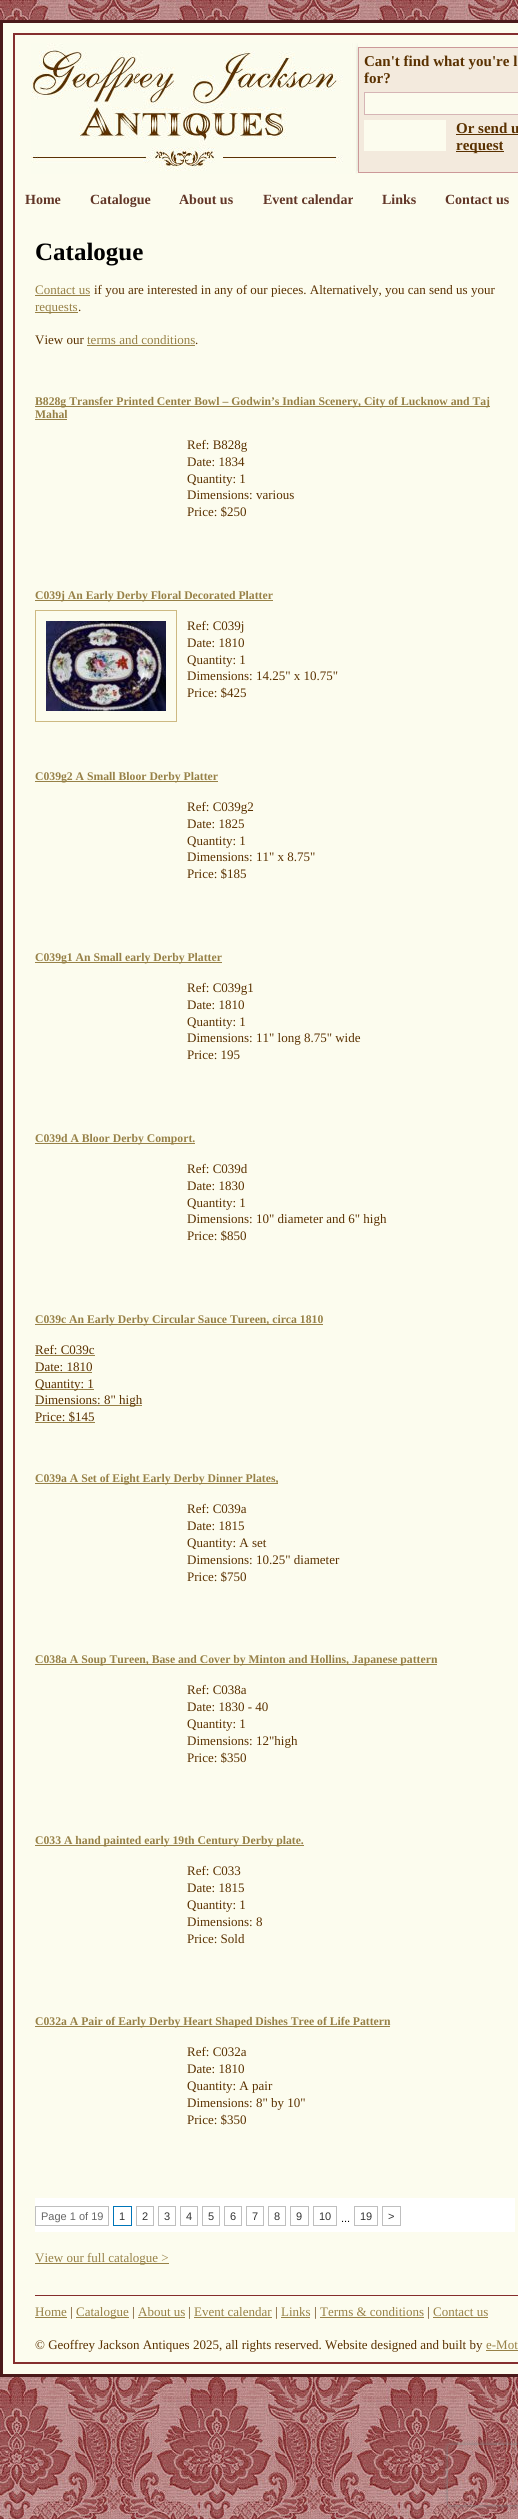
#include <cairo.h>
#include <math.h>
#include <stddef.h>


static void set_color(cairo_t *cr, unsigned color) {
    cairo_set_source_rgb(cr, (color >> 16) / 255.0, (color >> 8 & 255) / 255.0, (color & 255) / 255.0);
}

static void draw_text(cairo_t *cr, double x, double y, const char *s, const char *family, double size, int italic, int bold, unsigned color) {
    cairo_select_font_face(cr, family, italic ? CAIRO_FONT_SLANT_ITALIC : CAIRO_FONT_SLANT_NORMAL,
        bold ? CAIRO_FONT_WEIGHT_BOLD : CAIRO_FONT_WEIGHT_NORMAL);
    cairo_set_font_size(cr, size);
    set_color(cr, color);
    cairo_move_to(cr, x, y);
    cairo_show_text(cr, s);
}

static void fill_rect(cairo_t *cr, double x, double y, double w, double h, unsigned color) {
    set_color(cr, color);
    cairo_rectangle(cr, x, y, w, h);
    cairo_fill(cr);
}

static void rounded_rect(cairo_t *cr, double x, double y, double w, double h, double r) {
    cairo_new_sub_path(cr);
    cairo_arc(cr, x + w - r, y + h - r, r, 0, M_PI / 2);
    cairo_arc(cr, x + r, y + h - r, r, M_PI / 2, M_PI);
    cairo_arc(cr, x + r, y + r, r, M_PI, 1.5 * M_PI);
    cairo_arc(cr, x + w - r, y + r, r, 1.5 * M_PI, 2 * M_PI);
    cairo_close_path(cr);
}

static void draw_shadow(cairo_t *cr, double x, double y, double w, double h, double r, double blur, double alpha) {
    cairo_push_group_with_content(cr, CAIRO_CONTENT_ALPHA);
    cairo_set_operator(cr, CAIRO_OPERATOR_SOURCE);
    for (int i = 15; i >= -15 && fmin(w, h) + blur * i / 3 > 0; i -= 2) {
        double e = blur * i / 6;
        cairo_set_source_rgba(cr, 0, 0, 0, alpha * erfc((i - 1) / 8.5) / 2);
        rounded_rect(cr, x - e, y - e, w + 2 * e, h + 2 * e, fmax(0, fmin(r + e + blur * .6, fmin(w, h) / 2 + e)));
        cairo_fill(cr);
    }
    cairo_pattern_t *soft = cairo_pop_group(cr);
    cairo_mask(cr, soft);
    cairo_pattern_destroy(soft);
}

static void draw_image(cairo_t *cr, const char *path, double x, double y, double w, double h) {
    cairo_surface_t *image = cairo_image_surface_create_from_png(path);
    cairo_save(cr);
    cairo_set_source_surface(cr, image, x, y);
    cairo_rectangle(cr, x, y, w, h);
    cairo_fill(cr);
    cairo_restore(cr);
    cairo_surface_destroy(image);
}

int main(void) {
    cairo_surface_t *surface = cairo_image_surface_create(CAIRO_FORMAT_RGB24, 518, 2519);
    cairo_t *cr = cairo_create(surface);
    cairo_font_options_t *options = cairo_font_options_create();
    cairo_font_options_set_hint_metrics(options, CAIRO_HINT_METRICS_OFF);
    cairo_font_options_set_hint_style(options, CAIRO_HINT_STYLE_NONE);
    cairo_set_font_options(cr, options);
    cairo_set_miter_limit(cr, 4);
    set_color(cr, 0xFFFFFF);
    cairo_paint(cr);
    draw_image(cr, "assets/img1.png", 0, 0, 518, 2519);
    set_color(cr, 0xFCFCEE);
    cairo_rectangle(cr, 1.5, 21.5, 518, 2354);
    cairo_fill_preserve(cr);
    set_color(cr, 0x4A1919);
    cairo_set_line_width(cr, 3);
    cairo_stroke(cr);
    cairo_rectangle(cr, 14, 34, 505, 2329);
    set_color(cr, 0x852E2E);
    cairo_set_line_width(cr, 2);
    cairo_stroke(cr);
    draw_image(cr, "assets/img2.png", 31, 43, 327, 131);
    set_color(cr, 0xF3EADD);
    cairo_rectangle(cr, 358.5, 47.5, 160, 125);
    cairo_fill_preserve(cr);
    set_color(cr, 0xCC9999);
    cairo_set_line_width(cr, 1);
    cairo_stroke(cr);
    draw_text(cr, 364, 66, "Can't find what you're l", "Liberation Serif", 15, 0, 1, 0x5A3100);
    draw_text(cr, 364, 83, "for?", "Liberation Serif", 15, 0, 1, 0x5A3100);
    set_color(cr, 0xFCFCEE);
    cairo_rectangle(cr, 364.5, 92.5, 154, 22);
    cairo_fill_preserve(cr);
    set_color(cr, 0xD6B5B5);
    cairo_stroke(cr);
    fill_rect(cr, 364, 120, 82, 31, 0xFCFCEE);
    draw_text(cr, 456, 133, "Or send u", "Liberation Serif", 15, 0, 1, 0x5A3100);
    fill_rect(cr, 456, 134, 62, 1, 0x5A3100);
    fill_rect(cr, 456, 151, 48, 1, 0x5A3100);
    draw_text(cr, 456, 150, "request", "Liberation Serif", 15, 0, 1, 0x5A3100);
    draw_text(cr, 25, 204, "Home", "Liberation Serif", 14, 0, 1, 0x613627);
    draw_text(cr, 90, 204, "Catalogue", "Liberation Serif", 14, 0, 1, 0x613627);
    draw_text(cr, 179, 204, "About us", "Liberation Serif", 14, 0, 1, 0x613627);
    draw_text(cr, 263, 204, "Event calendar", "Liberation Serif", 14, 0, 1, 0x613627);
    draw_text(cr, 382, 204, "Links", "Liberation Serif", 14, 0, 1, 0x613627);
    draw_text(cr, 445, 204, "Contact us", "Liberation Serif", 14, 0, 1, 0x613627);
    draw_text(cr, 35, 260, "Catalogue", "Liberation Serif", 25, 0, 1, 0x000000);
    draw_text(cr, 35, 294, "Contact us", "Liberation Serif", 13, 0, 0, 0x978147);
    fill_rect(cr, 35, 295, 55, 1, 0x978147);
    draw_text(cr, 94, 294, "if you are interested in any of our pieces. Alternatively, you can send us your", "Liberation Serif", 13, 0, 0, 0x5A3100);
    fill_rect(cr, 35, 312, 43, 1, 0x978147);
    draw_text(cr, 35, 311, "requests", "Liberation Serif", 13, 0, 0, 0x978147);
    draw_text(cr, 78, 311, ".", "Liberation Serif", 13, 0, 0, 0x5A3100);
    draw_text(cr, 35, 344, "View our", "Liberation Serif", 13, 0, 0, 0x5A3100);
    draw_text(cr, 87, 344, "terms and conditions", "Liberation Serif", 13, 0, 0, 0x978147);
    fill_rect(cr, 87, 345, 108, 1, 0x978147);
    draw_text(cr, 195, 344, ".", "Liberation Serif", 13, 0, 0, 0x5A3100);
    fill_rect(cr, 35, 406, 455, 1, 0x978147);
    draw_text(cr, 35, 405, "B828g Transfer Printed Center Bowl – Godwin’s Indian Scenery, City of Lucknow and Taj", "Liberation Serif", 11.7, 0, 1, 0x978147);
    draw_text(cr, 35, 418, "Mahal", "Liberation Serif", 11.7, 0, 1, 0x978147);
    fill_rect(cr, 35, 419, 32, 1, 0x978147);
    draw_text(cr, 187, 449, "Ref: B828g", "Liberation Serif", 13, 0, 0, 0x5A3100);
    draw_text(cr, 187, 466, "Date: 1834", "Liberation Serif", 13, 0, 0, 0x5A3100);
    draw_text(cr, 187, 483, "Quantity: 1", "Liberation Serif", 13, 0, 0, 0x5A3100);
    draw_text(cr, 187, 499, "Dimensions: various", "Liberation Serif", 13, 0, 0, 0x5A3100);
    draw_text(cr, 187, 516, "Price: $250", "Liberation Serif", 13, 0, 0, 0x5A3100);
    fill_rect(cr, 35, 600, 238, 1, 0x978147);
    draw_text(cr, 35, 599, "C039j An Early Derby Floral Decorated Platter", "Liberation Serif", 11.7, 0, 1, 0x978147);
    cairo_rectangle(cr, 35.5, 610.5, 141, 111);
    set_color(cr, 0xCDB982);
    cairo_stroke(cr);
    draw_image(cr, "assets/img3.png", 46, 621, 120, 90);
    draw_text(cr, 187, 630, "Ref: C039j", "Liberation Serif", 13, 0, 0, 0x5A3100);
    draw_text(cr, 187, 647, "Date: 1810", "Liberation Serif", 13, 0, 0, 0x5A3100);
    draw_text(cr, 187, 664, "Quantity: 1", "Liberation Serif", 13, 0, 0, 0x5A3100);
    draw_text(cr, 187, 680, "Dimensions: 14.25\" x 10.75\"", "Liberation Serif", 13, 0, 0, 0x5A3100);
    draw_text(cr, 187, 697, "Price: $425", "Liberation Serif", 13, 0, 0, 0x5A3100);
    fill_rect(cr, 35, 781, 183, 1, 0x978147);
    draw_text(cr, 35, 780, "C039g2 A Small Bloor Derby Platter", "Liberation Serif", 11.7, 0, 1, 0x978147);
    draw_text(cr, 187, 811, "Ref: C039g2", "Liberation Serif", 13, 0, 0, 0x5A3100);
    draw_text(cr, 187, 828, "Date: 1825", "Liberation Serif", 13, 0, 0, 0x5A3100);
    draw_text(cr, 187, 845, "Quantity: 1", "Liberation Serif", 13, 0, 0, 0x5A3100);
    draw_text(cr, 187, 861, "Dimensions: 11\" x 8.75\"", "Liberation Serif", 13, 0, 0, 0x5A3100);
    draw_text(cr, 187, 878, "Price: $185", "Liberation Serif", 13, 0, 0, 0x5A3100);
    fill_rect(cr, 35, 962, 187, 1, 0x978147);
    draw_text(cr, 35, 961, "C039g1 An Small early Derby Platter", "Liberation Serif", 11.7, 0, 1, 0x978147);
    draw_text(cr, 187, 992, "Ref: C039g1", "Liberation Serif", 13, 0, 0, 0x5A3100);
    draw_text(cr, 187, 1009, "Date: 1810", "Liberation Serif", 13, 0, 0, 0x5A3100);
    draw_text(cr, 187, 1026, "Quantity: 1", "Liberation Serif", 13, 0, 0, 0x5A3100);
    draw_text(cr, 187, 1042, "Dimensions: 11\" long 8.75\" wide", "Liberation Serif", 13, 0, 0, 0x5A3100);
    draw_text(cr, 187, 1059, "Price: 195", "Liberation Serif", 13, 0, 0, 0x5A3100);
    fill_rect(cr, 35, 1143, 160, 1, 0x978147);
    draw_text(cr, 35, 1142, "C039d A Bloor Derby Comport.", "Liberation Serif", 11.7, 0, 1, 0x978147);
    draw_text(cr, 187, 1173, "Ref: C039d", "Liberation Serif", 13, 0, 0, 0x5A3100);
    draw_text(cr, 187, 1190, "Date: 1830", "Liberation Serif", 13, 0, 0, 0x5A3100);
    draw_text(cr, 187, 1207, "Quantity: 1", "Liberation Serif", 13, 0, 0, 0x5A3100);
    draw_text(cr, 187, 1223, "Dimensions: 10\" diameter and 6\" high", "Liberation Serif", 13, 0, 0, 0x5A3100);
    draw_text(cr, 187, 1240, "Price: $850", "Liberation Serif", 13, 0, 0, 0x5A3100);
    fill_rect(cr, 35, 1324, 288, 1, 0x978147);
    draw_text(cr, 35, 1323, "C039c An Early Derby Circular Sauce Tureen, circa 1810", "Liberation Serif", 11.7, 0, 1, 0x978147);
    draw_text(cr, 35, 1354, "Ref: C039c", "Liberation Serif", 13, 0, 0, 0x5A3100);
    fill_rect(cr, 35, 1355, 60, 1, 0x978147);
    draw_text(cr, 35, 1371, "Date: 1810", "Liberation Serif", 13, 0, 0, 0x5A3100);
    fill_rect(cr, 35, 1372, 57, 1, 0x978147);
    fill_rect(cr, 35, 1389, 59, 1, 0x978147);
    draw_text(cr, 35, 1388, "Quantity: 1", "Liberation Serif", 13, 0, 0, 0x5A3100);
    fill_rect(cr, 35, 1405, 107, 1, 0x978147);
    draw_text(cr, 35, 1404, "Dimensions: 8\" high", "Liberation Serif", 13, 0, 0, 0x5A3100);
    draw_text(cr, 35, 1421, "Price: $145", "Liberation Serif", 13, 0, 0, 0x5A3100);
    fill_rect(cr, 35, 1422, 60, 1, 0x978147);
    fill_rect(cr, 35, 1483, 243, 1, 0x978147);
    draw_text(cr, 35, 1482, "C039a A Set of Eight Early Derby Dinner Plates,", "Liberation Serif", 11.7, 0, 1, 0x978147);
    draw_text(cr, 187, 1513, "Ref: C039a", "Liberation Serif", 13, 0, 0, 0x5A3100);
    draw_text(cr, 187, 1530, "Date: 1815", "Liberation Serif", 13, 0, 0, 0x5A3100);
    draw_text(cr, 187, 1547, "Quantity: A set", "Liberation Serif", 13, 0, 0, 0x5A3100);
    draw_text(cr, 187, 1564, "Dimensions: 10.25\" diameter", "Liberation Serif", 13, 0, 0, 0x5A3100);
    draw_text(cr, 187, 1581, "Price: $750", "Liberation Serif", 13, 0, 0, 0x5A3100);
    fill_rect(cr, 35, 1664, 402, 1, 0x978147);
    draw_text(cr, 35, 1663, "C038a A Soup Tureen, Base and Cover by Minton and Hollins, Japanese pattern", "Liberation Serif", 11.7, 0, 1, 0x978147);
    draw_text(cr, 187, 1694, "Ref: C038a", "Liberation Serif", 13, 0, 0, 0x5A3100);
    draw_text(cr, 187, 1711, "Date: 1830 - 40", "Liberation Serif", 13, 0, 0, 0x5A3100);
    draw_text(cr, 187, 1728, "Quantity: 1", "Liberation Serif", 13, 0, 0, 0x5A3100);
    draw_text(cr, 187, 1745, "Dimensions: 12\"high", "Liberation Serif", 13, 0, 0, 0x5A3100);
    draw_text(cr, 187, 1762, "Price: $350", "Liberation Serif", 13, 0, 0, 0x5A3100);
    fill_rect(cr, 35, 1845, 269, 1, 0x978147);
    draw_text(cr, 35, 1844, "C033 A hand painted early 19th Century Derby plate.", "Liberation Serif", 11.7, 0, 1, 0x978147);
    draw_text(cr, 187, 1875, "Ref: C033", "Liberation Serif", 13, 0, 0, 0x5A3100);
    draw_text(cr, 187, 1892, "Date: 1815", "Liberation Serif", 13, 0, 0, 0x5A3100);
    draw_text(cr, 187, 1909, "Quantity: 1", "Liberation Serif", 13, 0, 0, 0x5A3100);
    draw_text(cr, 187, 1926, "Dimensions: 8", "Liberation Serif", 13, 0, 0, 0x5A3100);
    draw_text(cr, 187, 1943, "Price: Sold", "Liberation Serif", 13, 0, 0, 0x5A3100);
    fill_rect(cr, 35, 2026, 355, 1, 0x978147);
    draw_text(cr, 35, 2025, "C032a A Pair of Early Derby Heart Shaped Dishes Tree of Life Pattern", "Liberation Serif", 11.7, 0, 1, 0x978147);
    draw_text(cr, 187, 2056, "Ref: C032a", "Liberation Serif", 13, 0, 0, 0x5A3100);
    draw_text(cr, 187, 2073, "Date: 1810", "Liberation Serif", 13, 0, 0, 0x5A3100);
    draw_text(cr, 187, 2090, "Quantity: A pair", "Liberation Serif", 13, 0, 0, 0x5A3100);
    draw_text(cr, 187, 2107, "Dimensions: 8\" by 10\"", "Liberation Serif", 13, 0, 0, 0x5A3100);
    draw_text(cr, 187, 2124, "Price: $350", "Liberation Serif", 13, 0, 0, 0x5A3100);
    fill_rect(cr, 35, 2198, 480, 34, 0xFFFFFF);
    cairo_rectangle(cr, 35.5, 2206.5, 73, 19);
    set_color(cr, 0xBFBFBF);
    cairo_stroke(cr);
    draw_text(cr, 41, 2220, "Page 1 of 19", "Liberation Sans", 11, 0, 0, 0x666666);
    cairo_rectangle(cr, 113.5, 2206.5, 18, 19);
    set_color(cr, 0x0075B8);
    cairo_stroke(cr);
    draw_text(cr, 119, 2220, "1", "Liberation Sans", 11, 0, 0, 0x333333);
    cairo_rectangle(cr, 136.5, 2206.5, 17, 19);
    set_color(cr, 0xBFBFBF);
    cairo_stroke(cr);
    draw_text(cr, 142, 2220, "2", "Liberation Sans", 11, 0, 0, 0x333333);
    cairo_rectangle(cr, 158.5, 2206.5, 17, 19);
    set_color(cr, 0xBFBFBF);
    cairo_stroke(cr);
    draw_text(cr, 164, 2220, "3", "Liberation Sans", 11, 0, 0, 0x333333);
    cairo_rectangle(cr, 180.5, 2206.5, 17, 19);
    set_color(cr, 0xBFBFBF);
    cairo_stroke(cr);
    draw_text(cr, 186, 2220, "4", "Liberation Sans", 11, 0, 0, 0x333333);
    cairo_rectangle(cr, 202.5, 2206.5, 17, 19);
    set_color(cr, 0xBFBFBF);
    cairo_stroke(cr);
    draw_text(cr, 208, 2220, "5", "Liberation Sans", 11, 0, 0, 0x333333);
    cairo_rectangle(cr, 224.5, 2206.5, 17, 19);
    set_color(cr, 0xBFBFBF);
    cairo_stroke(cr);
    draw_text(cr, 230, 2220, "6", "Liberation Sans", 11, 0, 0, 0x333333);
    cairo_rectangle(cr, 246.5, 2206.5, 17, 19);
    set_color(cr, 0xBFBFBF);
    cairo_stroke(cr);
    draw_text(cr, 252, 2220, "7", "Liberation Sans", 11, 0, 0, 0x333333);
    cairo_rectangle(cr, 268.5, 2206.5, 17, 19);
    set_color(cr, 0xBFBFBF);
    cairo_stroke(cr);
    draw_text(cr, 274, 2220, "8", "Liberation Sans", 11, 0, 0, 0x333333);
    cairo_rectangle(cr, 290.5, 2206.5, 18, 19);
    set_color(cr, 0xBFBFBF);
    cairo_stroke(cr);
    draw_text(cr, 296, 2220, "9", "Liberation Sans", 11, 0, 0, 0x333333);
    cairo_rectangle(cr, 313.5, 2206.5, 23, 19);
    set_color(cr, 0xBFBFBF);
    cairo_stroke(cr);
    draw_text(cr, 319, 2220, "10", "Liberation Sans", 11, 0, 0, 0x333333);
    cairo_rectangle(cr, 354.5, 2206.5, 23, 19);
    set_color(cr, 0xBFBFBF);
    cairo_stroke(cr);
    draw_text(cr, 360, 2220, "19", "Liberation Sans", 11, 0, 0, 0x333333);
    cairo_rectangle(cr, 382.5, 2206.5, 18, 19);
    set_color(cr, 0xBFBFBF);
    cairo_stroke(cr);
    draw_text(cr, 388, 2220, ">", "Liberation Sans", 11, 0, 0, 0x333333);
    draw_text(cr, 341, 2222, "...", "Liberation Sans", 11, 0, 0, 0x000000);
    fill_rect(cr, 35, 2263, 134, 1, 0x978147);
    draw_text(cr, 35, 2262, "View our full catalogue >", "Liberation Serif", 13, 0, 0, 0x978147);
    fill_rect(cr, 35, 2295, 483, 1, 0x852E2E);
    draw_text(cr, 35, 2316, "Home", "Liberation Serif", 13, 0, 0, 0x978147);
    fill_rect(cr, 35, 2317, 32, 1, 0x978147);
    draw_text(cr, 70, 2316, "|", "Liberation Serif", 13, 0, 0, 0x5A3100);
    fill_rect(cr, 76, 2317, 53, 1, 0x978147);
    draw_text(cr, 76, 2316, "Catalogue", "Liberation Serif", 13, 0, 0, 0x978147);
    draw_text(cr, 132, 2316, "|", "Liberation Serif", 13, 0, 0, 0x5A3100);
    draw_text(cr, 138, 2316, "About us", "Liberation Serif", 13, 0, 0, 0x978147);
    fill_rect(cr, 138, 2317, 47, 1, 0x978147);
    draw_text(cr, 188, 2316, "|", "Liberation Serif", 13, 0, 0, 0x5A3100);
    draw_text(cr, 194, 2316, "Event calendar", "Liberation Serif", 13, 0, 0, 0x978147);
    fill_rect(cr, 194, 2317, 78, 1, 0x978147);
    draw_text(cr, 275, 2316, "|", "Liberation Serif", 13, 0, 0, 0x5A3100);
    draw_text(cr, 281, 2316, "Links", "Liberation Serif", 13, 0, 0, 0x978147);
    fill_rect(cr, 281, 2317, 29, 1, 0x978147);
    draw_text(cr, 314, 2316, "|", "Liberation Serif", 13, 0, 0, 0x5A3100);
    draw_text(cr, 320, 2316, "Terms & conditions", "Liberation Serif", 13, 0, 0, 0x978147);
    fill_rect(cr, 320, 2317, 104, 1, 0x978147);
    draw_text(cr, 427, 2316, "|", "Liberation Serif", 13, 0, 0, 0x5A3100);
    draw_text(cr, 433, 2316, "Contact us", "Liberation Serif", 13, 0, 0, 0x978147);
    fill_rect(cr, 433, 2317, 55, 1, 0x978147);
    draw_text(cr, 35, 2349, "© Geoffrey Jackson Antiques 2025, all rights reserved. Website designed and built by", "Liberation Serif", 13, 0, 0, 0x5A3100);
    draw_text(cr, 486, 2349, "e-Mot", "Liberation Serif", 13, 0, 0, 0x978147);
    fill_rect(cr, 486, 2350, 32, 1, 0x978147);
    cairo_save(cr);
    cairo_set_fill_rule(cr, CAIRO_FILL_RULE_EVEN_ODD);
    cairo_new_path(cr);
    cairo_move_to(cr, 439, 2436);
    cairo_line_to(cr, 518, 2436);
    cairo_line_to(cr, 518, 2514);
    cairo_line_to(cr, 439, 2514);
    cairo_close_path(cr);
    cairo_move_to(cr, 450, 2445);
    cairo_line_to(cr, 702, 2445);
    cairo_curve_to(cr, 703, 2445, 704, 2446, 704, 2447);
    cairo_line_to(cr, 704, 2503);
    cairo_curve_to(cr, 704, 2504, 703, 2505, 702, 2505);
    cairo_line_to(cr, 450, 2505);
    cairo_curve_to(cr, 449, 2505, 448, 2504, 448, 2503);
    cairo_line_to(cr, 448, 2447);
    cairo_curve_to(cr, 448, 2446, 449, 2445, 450, 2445);
    cairo_close_path(cr);
    cairo_clip(cr);
    set_color(cr, 0x808080);
    draw_shadow(cr, 448, 2445, 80, 60, 2, 2.5, 1);
    cairo_restore(cr);
    cairo_surface_write_to_png(surface, "output.png");
    cairo_font_options_destroy(options);
    cairo_destroy(cr);
    cairo_surface_destroy(surface);
    return 0;
}
